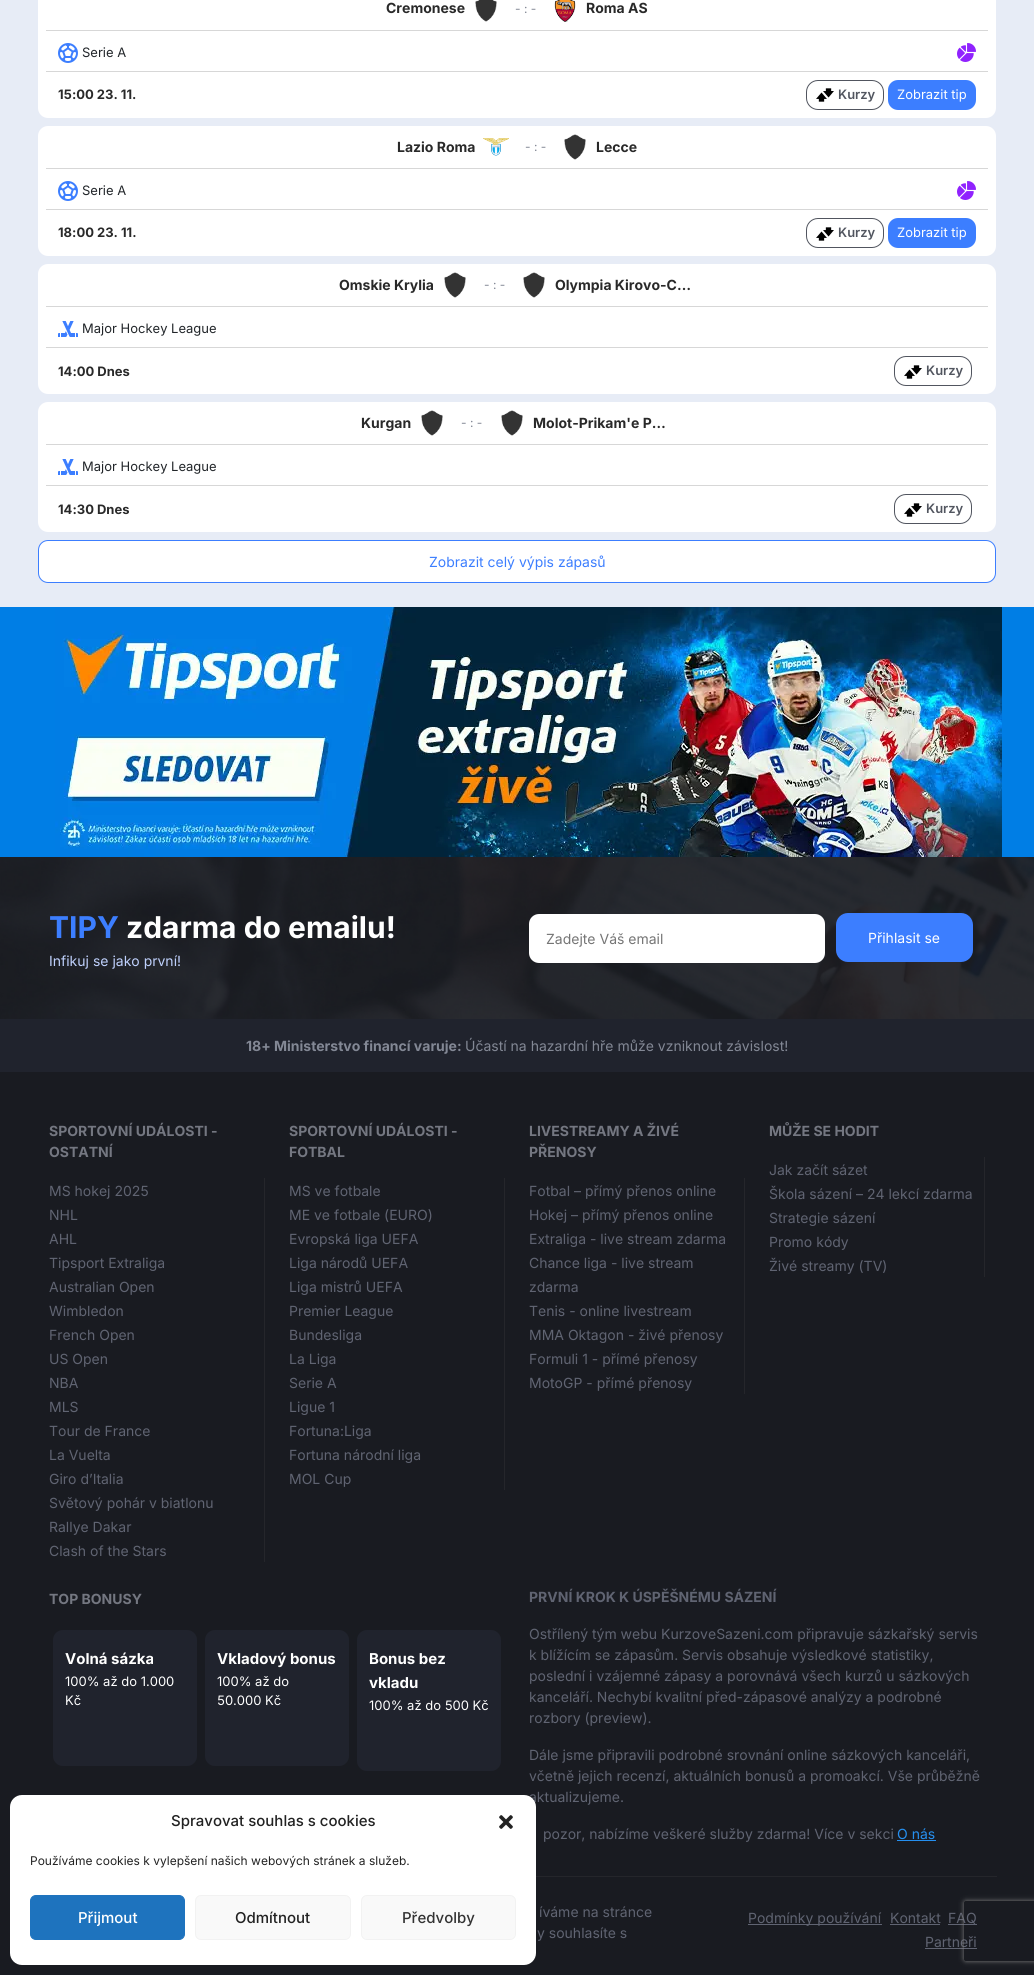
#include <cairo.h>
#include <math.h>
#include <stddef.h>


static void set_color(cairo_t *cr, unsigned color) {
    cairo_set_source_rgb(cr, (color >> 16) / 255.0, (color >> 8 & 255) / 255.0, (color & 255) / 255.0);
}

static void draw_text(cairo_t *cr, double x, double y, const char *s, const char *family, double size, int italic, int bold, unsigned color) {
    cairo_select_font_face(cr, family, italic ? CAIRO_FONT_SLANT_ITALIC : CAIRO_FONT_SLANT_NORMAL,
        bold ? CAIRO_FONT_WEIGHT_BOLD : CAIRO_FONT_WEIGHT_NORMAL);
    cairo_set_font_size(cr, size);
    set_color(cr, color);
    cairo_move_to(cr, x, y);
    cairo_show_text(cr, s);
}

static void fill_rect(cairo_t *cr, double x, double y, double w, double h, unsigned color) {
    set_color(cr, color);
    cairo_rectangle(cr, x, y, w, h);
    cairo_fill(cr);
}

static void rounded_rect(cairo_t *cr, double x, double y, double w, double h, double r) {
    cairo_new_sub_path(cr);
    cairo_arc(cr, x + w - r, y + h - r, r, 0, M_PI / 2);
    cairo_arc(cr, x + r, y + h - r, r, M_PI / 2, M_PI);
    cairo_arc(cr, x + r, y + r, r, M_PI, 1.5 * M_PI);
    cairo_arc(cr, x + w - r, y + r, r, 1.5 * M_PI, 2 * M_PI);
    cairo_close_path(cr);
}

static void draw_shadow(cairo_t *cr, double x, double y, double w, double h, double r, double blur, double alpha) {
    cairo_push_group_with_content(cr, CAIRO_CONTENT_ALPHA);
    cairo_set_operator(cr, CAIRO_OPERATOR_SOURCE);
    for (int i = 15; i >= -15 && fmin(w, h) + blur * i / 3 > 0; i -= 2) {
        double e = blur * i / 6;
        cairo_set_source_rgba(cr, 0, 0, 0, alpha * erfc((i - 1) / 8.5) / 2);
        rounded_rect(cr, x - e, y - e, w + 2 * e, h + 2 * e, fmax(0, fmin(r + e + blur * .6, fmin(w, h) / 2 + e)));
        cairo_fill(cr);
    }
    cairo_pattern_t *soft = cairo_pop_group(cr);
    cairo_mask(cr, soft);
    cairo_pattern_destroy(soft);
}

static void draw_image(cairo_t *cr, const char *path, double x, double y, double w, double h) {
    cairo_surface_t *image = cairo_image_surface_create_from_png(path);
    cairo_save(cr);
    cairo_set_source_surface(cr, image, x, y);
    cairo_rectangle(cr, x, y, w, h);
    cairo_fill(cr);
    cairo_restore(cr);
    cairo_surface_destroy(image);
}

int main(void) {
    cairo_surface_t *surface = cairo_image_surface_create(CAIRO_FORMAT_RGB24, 1034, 1975);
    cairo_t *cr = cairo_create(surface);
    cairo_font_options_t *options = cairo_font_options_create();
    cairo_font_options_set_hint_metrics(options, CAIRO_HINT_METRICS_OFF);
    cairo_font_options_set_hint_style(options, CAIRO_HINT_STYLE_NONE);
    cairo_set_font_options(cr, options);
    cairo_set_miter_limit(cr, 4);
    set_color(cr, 0x007EE5);
    cairo_paint(cr);
    fill_rect(cr, 0, 0, 1034, 607, 0xE7ECF6);
    set_color(cr, 0xFFFFFF);
    rounded_rect(cr, 38, -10, 958, 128, 10);
    cairo_fill(cr);
    fill_rect(cr, 46, 30, 942, 1, 0xD7D7D7);
    draw_text(cr, 386, 13, "Cremonese", "Inter", 14, 0, 1, 0x292929);
    draw_image(cr, "assets/img1.png", 475, 0, 22, 22);
    draw_text(cr, 515, 13, "- : -", "Inter", 12, 0, 0, 0x838895);
    draw_image(cr, "assets/img2.png", 554, 0, 22, 22);
    draw_text(cr, 586, 13, "Roma AS", "Inter", 14, 0, 1, 0x292929);
    draw_image(cr, "assets/img3.png", 58, 43, 20, 20);
    draw_text(cr, 82, 57, "Serie A", "Inter", 13, 0, 0, 0x212529);
    draw_image(cr, "assets/img4.png", 957, 43, 19, 19);
    fill_rect(cr, 46, 71, 942, 1, 0xD7D7D7);
    draw_text(cr, 58, 99, "15:00 23. 11.", "Inter", 13, 0, 1, 0x292929);
    rounded_rect(cr, 806.5, 80.5, 77, 29, 11.5);
    set_color(cr, 0x51555F);
    cairo_set_line_width(cr, 1);
    cairo_stroke(cr);
    draw_image(cr, "assets/img5.png", 816, 88, 18, 14);
    draw_text(cr, 838, 99, "Kurzy", "Inter SemiBold", 13, 0, 0, 0x51555F);
    set_color(cr, 0x3C7EFF);
    rounded_rect(cr, 888, 80, 88, 30, 10);
    cairo_fill(cr);
    draw_text(cr, 897, 99, "Zobrazit tip", "Inter", 13, 0, 0, 0xFFFFFF);
    rounded_rect(cr, 38, 126, 958, 130, 10);
    cairo_fill(cr);
    fill_rect(cr, 46, 168, 942, 1, 0xD7D7D7);
    draw_text(cr, 397, 152, "Lazio Roma", "Inter", 14, 0, 1, 0x292929);
    draw_image(cr, "assets/img6.png", 483, 138, 26, 18);
    draw_text(cr, 525, 151, "- : -", "Inter", 12, 0, 0, 0x838895);
    draw_image(cr, "assets/img7.png", 564, 134, 22, 26);
    draw_text(cr, 596, 152, "Lecce", "Inter", 14, 0, 1, 0x292929);
    draw_image(cr, "assets/img3.png", 58, 181, 20, 20);
    draw_text(cr, 82, 195, "Serie A", "Inter", 13, 0, 0, 0x212529);
    draw_image(cr, "assets/img4.png", 957, 181, 19, 19);
    fill_rect(cr, 46, 209, 942, 1, 0xD7D7D7);
    draw_text(cr, 58, 237, "18:00 23. 11.", "Inter", 13, 0, 1, 0x292929);
    rounded_rect(cr, 806.5, 218.5, 77, 29, 11.5);
    set_color(cr, 0x51555F);
    cairo_stroke(cr);
    draw_image(cr, "assets/img5.png", 816, 227, 18, 14);
    draw_text(cr, 838, 237, "Kurzy", "Inter SemiBold", 13, 0, 0, 0x51555F);
    set_color(cr, 0x3C7EFF);
    rounded_rect(cr, 888, 218, 88, 30, 10);
    cairo_fill(cr);
    draw_text(cr, 897, 237, "Zobrazit tip", "Inter", 13, 0, 0, 0xFFFFFF);
    rounded_rect(cr, 38, 264, 958, 130, 10);
    cairo_fill(cr);
    fill_rect(cr, 46, 306, 942, 1, 0xD7D7D7);
    draw_text(cr, 339, 290, "Omskie Krylia", "Inter", 14, 0, 1, 0x292929);
    draw_image(cr, "assets/img7.png", 444, 272, 22, 26);
    draw_text(cr, 484, 289, "- : -", "Inter", 12, 0, 0, 0x838895);
    draw_image(cr, "assets/img8.png", 523, 272, 22, 26);
    draw_text(cr, 555, 290, "Olympia Kirovo-C…", "Inter", 14, 0, 1, 0x292929);
    draw_image(cr, "assets/img9.png", 58, 321, 20, 16);
    draw_text(cr, 82, 333, "Major Hockey League", "Inter", 13, 0, 0, 0x212529);
    fill_rect(cr, 46, 347, 942, 1, 0xD7D7D7);
    draw_text(cr, 58, 376, "14:00 Dnes", "Inter", 13, 0, 1, 0x292929);
    rounded_rect(cr, 894.5, 356.5, 77, 29, 11.5);
    set_color(cr, 0x51555F);
    cairo_stroke(cr);
    draw_image(cr, "assets/img5.png", 904, 365, 18, 14);
    draw_text(cr, 926, 375, "Kurzy", "Inter SemiBold", 13, 0, 0, 0x51555F);
    set_color(cr, 0xFFFFFF);
    rounded_rect(cr, 38, 402, 958, 130, 10);
    cairo_fill(cr);
    fill_rect(cr, 46, 444, 942, 1, 0xD7D7D7);
    draw_text(cr, 361, 428, "Kurgan", "Inter", 14, 0, 1, 0x292929);
    draw_image(cr, "assets/img7.png", 421, 410, 22, 26);
    draw_text(cr, 461, 427, "- : -", "Inter", 12, 0, 0, 0x838895);
    draw_image(cr, "assets/img10.png", 501, 410, 22, 26);
    draw_text(cr, 533, 428, "Molot-Prikam'e P…", "Inter", 14, 0, 1, 0x292929);
    draw_image(cr, "assets/img9.png", 58, 459, 20, 16);
    draw_text(cr, 82, 471, "Major Hockey League", "Inter", 13, 0, 0, 0x212529);
    fill_rect(cr, 46, 485, 942, 1, 0xD7D7D7);
    draw_text(cr, 58, 514, "14:30 Dnes", "Inter", 13, 0, 1, 0x292929);
    rounded_rect(cr, 894.5, 494.5, 77, 29, 11.5);
    set_color(cr, 0x51555F);
    cairo_stroke(cr);
    draw_image(cr, "assets/img5.png", 904, 503, 18, 14);
    draw_text(cr, 926, 513, "Kurzy", "Inter SemiBold", 13, 0, 0, 0x51555F);
    set_color(cr, 0xFFFFFF);
    rounded_rect(cr, 38.5, 540.5, 957, 42, 9.5);
    cairo_fill_preserve(cr);
    set_color(cr, 0x3C7EFF);
    cairo_stroke(cr);
    draw_text(cr, 429, 567, "Zobrazit celý výpis zápasů", "Inter", 14, 0, 0, 0x3C7EFF);
    draw_image(cr, "assets/img11.png", 55, 607, 947, 250);
    fill_rect(cr, 0, 857, 1034, 162, 0x191B21);
    draw_image(cr, "assets/img12.png", 0, 857, 1034, 162);
    draw_text(cr, 49, 938, "TIPY", "Inter", 30, 0, 1, 0x3C7EFF);
    draw_text(cr, 126, 938, "zdarma do emailu!", "Inter", 30, 0, 1, 0xFFFFFF);
    draw_text(cr, 49, 966, "Infikuj se jako první!", "Inter", 14, 0, 0, 0xBFD1FD);
    set_color(cr, 0xFFFFFF);
    rounded_rect(cr, 529, 914, 296, 49, 10);
    cairo_fill(cr);
    draw_text(cr, 546, 944, "Zadejte Váš email", "Inter", 14, 0, 0, 0x757575);
    set_color(cr, 0x3C7EFF);
    rounded_rect(cr, 836, 913, 137, 49, 12);
    cairo_fill(cr);
    draw_text(cr, 868, 943, "Přihlasit se", "Inter", 14, 0, 0, 0xFFFFFF);
    fill_rect(cr, 0, 1019, 1034, 53, 0x20232D);
    draw_text(cr, 246, 1051, "18+ Ministerstvo financí varuje:", "Inter", 14, 0, 1, 0x838895);
    draw_text(cr, 465, 1051, "Účastí na hazardní hře může vzniknout závislost!", "Inter", 14, 0, 0, 0x838895);
    fill_rect(cr, 0, 1072, 1034, 903, 0x191B21);
    draw_text(cr, 49, 1136, "SPORTOVNÍ UDÁLOSTI -", "Inter", 14, 0, 1, 0x747781);
    draw_text(cr, 49, 1157, "OSTATNÍ", "Inter", 14, 0, 1, 0x747781);
    fill_rect(cr, 264, 1178, 1, 384, 0x25262B);
    draw_text(cr, 49, 1196, "MS hokej 2025", "Inter", 14, 0, 0, 0x606472);
    draw_text(cr, 49, 1220, "NHL", "Inter", 14, 0, 0, 0x606472);
    draw_text(cr, 49, 1244, "AHL", "Inter", 14, 0, 0, 0x606472);
    draw_text(cr, 49, 1268, "Tipsport Extraliga", "Inter", 14, 0, 0, 0x606472);
    draw_text(cr, 49, 1292, "Australian Open", "Inter", 14, 0, 0, 0x606472);
    draw_text(cr, 49, 1316, "Wimbledon", "Inter", 14, 0, 0, 0x606472);
    draw_text(cr, 49, 1340, "French Open", "Inter", 14, 0, 0, 0x606472);
    draw_text(cr, 49, 1364, "US Open", "Inter", 14, 0, 0, 0x606472);
    draw_text(cr, 49, 1388, "NBA", "Inter", 14, 0, 0, 0x606472);
    draw_text(cr, 49, 1412, "MLS", "Inter", 14, 0, 0, 0x606472);
    draw_text(cr, 49, 1436, "Tour de France", "Inter", 14, 0, 0, 0x606472);
    draw_text(cr, 49, 1460, "La Vuelta", "Inter", 14, 0, 0, 0x606472);
    draw_text(cr, 49, 1484, "Giro d’Italia", "Inter", 14, 0, 0, 0x606472);
    draw_text(cr, 49, 1508, "Světový pohár v biatlonu", "Inter", 14, 0, 0, 0x606472);
    draw_text(cr, 49, 1532, "Rallye Dakar", "Inter", 14, 0, 0, 0x606472);
    draw_text(cr, 49, 1556, "Clash of the Stars", "Inter", 14, 0, 0, 0x606472);
    draw_text(cr, 289, 1136, "SPORTOVNÍ UDÁLOSTI -", "Inter", 14, 0, 1, 0x747781);
    draw_text(cr, 289, 1157, "FOTBAL", "Inter", 14, 0, 1, 0x747781);
    fill_rect(cr, 504, 1178, 1, 312, 0x25262B);
    draw_text(cr, 289, 1196, "MS ve fotbale", "Inter", 14, 0, 0, 0x606472);
    draw_text(cr, 289, 1220, "ME ve fotbale (EURO)", "Inter", 14, 0, 0, 0x606472);
    draw_text(cr, 289, 1244, "Evropská liga UEFA", "Inter", 14, 0, 0, 0x606472);
    draw_text(cr, 289, 1268, "Liga národů UEFA", "Inter", 14, 0, 0, 0x606472);
    draw_text(cr, 289, 1292, "Liga mistrů UEFA", "Inter", 14, 0, 0, 0x606472);
    draw_text(cr, 289, 1316, "Premier League", "Inter", 14, 0, 0, 0x606472);
    draw_text(cr, 289, 1340, "Bundesliga", "Inter", 14, 0, 0, 0x606472);
    draw_text(cr, 289, 1364, "La Liga", "Inter", 14, 0, 0, 0x606472);
    draw_text(cr, 289, 1388, "Serie A", "Inter", 14, 0, 0, 0x606472);
    draw_text(cr, 289, 1412, "Ligue 1", "Inter", 14, 0, 0, 0x606472);
    draw_text(cr, 289, 1436, "Fortuna:Liga", "Inter", 14, 0, 0, 0x606472);
    draw_text(cr, 289, 1460, "Fortuna národní liga", "Inter", 14, 0, 0, 0x606472);
    draw_text(cr, 289, 1484, "MOL Cup", "Inter", 14, 0, 0, 0x606472);
    draw_text(cr, 529, 1136, "LIVESTREAMY A ŽIVÉ", "Inter", 14, 0, 1, 0x747781);
    draw_text(cr, 529, 1157, "PŘENOSY", "Inter", 14, 0, 1, 0x747781);
    fill_rect(cr, 744, 1178, 1, 216, 0x25262B);
    draw_text(cr, 529, 1196, "Fotbal – přímý přenos online", "Inter", 14, 0, 0, 0x606472);
    draw_text(cr, 529, 1220, "Hokej – přímý přenos online", "Inter", 14, 0, 0, 0x606472);
    draw_text(cr, 529, 1244, "Extraliga - live stream zdarma", "Inter", 14, 0, 0, 0x606472);
    draw_text(cr, 529, 1268, "Chance liga - live stream", "Inter", 14, 0, 0, 0x606472);
    draw_text(cr, 529, 1292, "zdarma", "Inter", 14, 0, 0, 0x606472);
    draw_text(cr, 529, 1316, "Tenis - online livestream", "Inter", 14, 0, 0, 0x606472);
    draw_text(cr, 529, 1340, "MMA Oktagon - živé přenosy", "Inter", 14, 0, 0, 0x606472);
    draw_text(cr, 529, 1364, "Formuli 1 - přímé přenosy", "Inter", 14, 0, 0, 0x606472);
    draw_text(cr, 529, 1388, "MotoGP - přímé přenosy", "Inter", 14, 0, 0, 0x606472);
    draw_text(cr, 769, 1136, "MŮŽE SE HODIT", "Inter", 14, 0, 1, 0x747781);
    fill_rect(cr, 984, 1157, 1, 120, 0x25262B);
    draw_text(cr, 769, 1175, "Jak začít sázet", "Inter", 14, 0, 0, 0x606472);
    draw_text(cr, 769, 1199, "Škola sázení – 24 lekcí zdarma", "Inter", 14, 0, 0, 0x606472);
    draw_text(cr, 769, 1223, "Strategie sázení", "Inter", 14, 0, 0, 0x606472);
    draw_text(cr, 769, 1247, "Promo kódy", "Inter", 14, 0, 0, 0x606472);
    draw_text(cr, 769, 1271, "Živé streamy (TV)", "Inter", 14, 0, 0, 0x606472);
    draw_text(cr, 49, 1604, "TOP BONUSY", "Inter", 14, 0, 1, 0x747781);
    set_color(cr, 0x20232D);
    rounded_rect(cr, 53, 1630, 144, 136, 10);
    cairo_fill(cr);
    draw_text(cr, 65, 1664, "Volná sázka", "Inter", 15, 0, 1, 0xFFFFFF);
    draw_text(cr, 65, 1686, "100% až do 1.000", "Inter", 13, 0, 0, 0xFFFFFF);
    draw_text(cr, 65, 1705, "Kč", "Inter", 13, 0, 0, 0xFFFFFF);
    set_color(cr, 0x20232D);
    rounded_rect(cr, 205, 1630, 144, 136, 10);
    cairo_fill(cr);
    draw_text(cr, 217, 1664, "Vkladový bonus", "Inter", 15, 0, 1, 0xFFFFFF);
    draw_text(cr, 217, 1686, "100% až do", "Inter", 13, 0, 0, 0xFFFFFF);
    draw_text(cr, 217, 1705, "50.000 Kč", "Inter", 13, 0, 0, 0xFFFFFF);
    set_color(cr, 0x20232D);
    rounded_rect(cr, 357, 1630, 144, 141, 10);
    cairo_fill(cr);
    draw_text(cr, 369, 1664, "Bonus bez", "Inter", 15, 0, 1, 0xFFFFFF);
    draw_text(cr, 369, 1688, "vkladu", "Inter", 15, 0, 1, 0xFFFFFF);
    draw_text(cr, 369, 1710, "100% až do 500 Kč", "Inter", 13, 0, 0, 0xFFFFFF);
    draw_text(cr, 529, 1602, "PRVNÍ KROK K ÚSPĚŠNÉMU SÁZENÍ", "Inter", 14, 0, 1, 0x606472);
    draw_text(cr, 529, 1639, "Ostřílený tým webu KurzoveSazeni.com připravuje sázkařský servis", "Inter", 14, 0, 0, 0x606472);
    draw_text(cr, 529, 1660, "k blížícím se zápasům. Servis obsahuje výsledkové statistiky,", "Inter", 14, 0, 0, 0x606472);
    draw_text(cr, 529, 1681, "poslední i vzájemné zápasy a porovnává všech kurzů u sázkových", "Inter", 14, 0, 0, 0x606472);
    draw_text(cr, 529, 1702, "kanceláří. Nechybí kvalitní před-zápasové analýzy a podrobné", "Inter", 14, 0, 0, 0x606472);
    draw_text(cr, 529, 1723, "rozbory (preview).", "Inter", 14, 0, 0, 0x606472);
    draw_text(cr, 529, 1760, "Dále jsme připravili podrobné srovnání online sázkových kanceláři,", "Inter", 14, 0, 0, 0x606472);
    draw_text(cr, 529, 1781, "včetně jejich recenzí, aktuálních bonusů a promoakcí. Vše průběžně", "Inter", 14, 0, 0, 0x606472);
    draw_text(cr, 529, 1802, "aktualizujeme.", "Inter", 14, 0, 0, 0x606472);
    draw_text(cr, 543, 1839, "pozor, nabízíme veškeré služby zdarma! Více v sekci", "Inter", 14, 0, 0, 0x606472);
    draw_text(cr, 897, 1839, "O nás", "Inter", 14, 0, 0, 0x258FEF);
    fill_rect(cr, 897, 1840, 39, 1, 0x258FEF);
    fill_rect(cr, 536, 1876, 461, 1, 0x25262B);
    draw_text(cr, 539, 1917, "íváme na stránce", "Inter", 14, 0, 0, 0x606472);
    draw_text(cr, 537, 1938, "y souhlasíte s", "Inter", 14, 0, 0, 0x606472);
    fill_rect(cr, 748, 1924, 134, 1, 0x606472);
    draw_text(cr, 748, 1923, "Podmínky používání", "Inter", 14, 0, 0, 0x606472);
    draw_text(cr, 890, 1923, "Kontakt", "Inter", 14, 0, 0, 0x606472);
    fill_rect(cr, 890, 1924, 50, 1, 0x606472);
    draw_text(cr, 948, 1923, "FAQ", "Inter", 14, 0, 0, 0x606472);
    fill_rect(cr, 948, 1924, 29, 1, 0x606472);
    draw_text(cr, 925, 1947, "Partneři", "Inter", 14, 0, 0, 0x606472);
    fill_rect(cr, 925, 1948, 52, 1, 0x606472);
    set_color(cr, 0xFFFFFF);
    rounded_rect(cr, 10, 1795, 526, 170, 12);
    cairo_fill(cr);
    draw_text(cr, 171, 1826, "Spravovat souhlas s cookies", "Inter Medium", 15, 0, 0, 0x222222);
    draw_image(cr, "assets/img13.png", 499, 1815, 14, 14);
    draw_text(cr, 30, 1865, "Používáme cookies k vylepšení našich webových stránek a služeb.", "Inter", 12, 0, 0, 0x222222);
    set_color(cr, 0x1E73BE);
    rounded_rect(cr, 30.5, 1895.5, 154, 44, 5.5);
    cairo_fill_preserve(cr);
    cairo_stroke(cr);
    draw_text(cr, 78, 1923, "Přijmout", "Inter Medium", 15, 0, 0, 0xFFFFFF);
    set_color(cr, 0xF9F9F9);
    rounded_rect(cr, 195.5, 1895.5, 155, 44, 5.5);
    cairo_fill_preserve(cr);
    set_color(cr, 0xF2F2F2);
    cairo_stroke(cr);
    draw_text(cr, 235, 1923, "Odmítnout", "Inter Medium", 15, 0, 0, 0x222222);
    set_color(cr, 0xF9F9F9);
    rounded_rect(cr, 361.5, 1895.5, 154, 44, 5.5);
    cairo_fill_preserve(cr);
    set_color(cr, 0xF2F2F2);
    cairo_stroke(cr);
    draw_text(cr, 402, 1923, "Předvolby", "Inter Medium", 15, 0, 0, 0x333333);
    cairo_save(cr);
    cairo_set_fill_rule(cr, CAIRO_FILL_RULE_EVEN_ODD);
    cairo_new_path(cr);
    cairo_move_to(cr, 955, 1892);
    cairo_line_to(cr, 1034, 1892);
    cairo_line_to(cr, 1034, 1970);
    cairo_line_to(cr, 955, 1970);
    cairo_close_path(cr);
    cairo_move_to(cr, 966, 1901);
    cairo_line_to(cr, 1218, 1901);
    cairo_curve_to(cr, 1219, 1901, 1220, 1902, 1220, 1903);
    cairo_line_to(cr, 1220, 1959);
    cairo_curve_to(cr, 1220, 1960, 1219, 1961, 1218, 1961);
    cairo_line_to(cr, 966, 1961);
    cairo_curve_to(cr, 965, 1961, 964, 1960, 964, 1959);
    cairo_line_to(cr, 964, 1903);
    cairo_curve_to(cr, 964, 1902, 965, 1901, 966, 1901);
    cairo_close_path(cr);
    cairo_clip(cr);
    set_color(cr, 0x808080);
    draw_shadow(cr, 964, 1901, 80, 60, 2, 2.5, 1);
    cairo_restore(cr);
    cairo_surface_write_to_png(surface, "output.png");
    cairo_font_options_destroy(options);
    cairo_destroy(cr);
    cairo_surface_destroy(surface);
    return 0;
}
